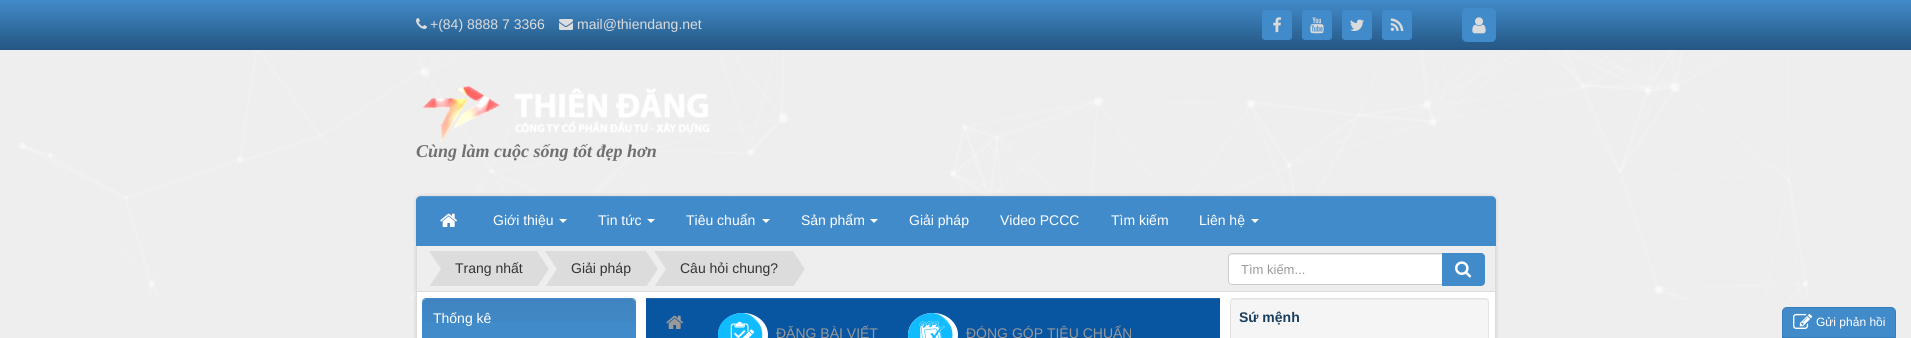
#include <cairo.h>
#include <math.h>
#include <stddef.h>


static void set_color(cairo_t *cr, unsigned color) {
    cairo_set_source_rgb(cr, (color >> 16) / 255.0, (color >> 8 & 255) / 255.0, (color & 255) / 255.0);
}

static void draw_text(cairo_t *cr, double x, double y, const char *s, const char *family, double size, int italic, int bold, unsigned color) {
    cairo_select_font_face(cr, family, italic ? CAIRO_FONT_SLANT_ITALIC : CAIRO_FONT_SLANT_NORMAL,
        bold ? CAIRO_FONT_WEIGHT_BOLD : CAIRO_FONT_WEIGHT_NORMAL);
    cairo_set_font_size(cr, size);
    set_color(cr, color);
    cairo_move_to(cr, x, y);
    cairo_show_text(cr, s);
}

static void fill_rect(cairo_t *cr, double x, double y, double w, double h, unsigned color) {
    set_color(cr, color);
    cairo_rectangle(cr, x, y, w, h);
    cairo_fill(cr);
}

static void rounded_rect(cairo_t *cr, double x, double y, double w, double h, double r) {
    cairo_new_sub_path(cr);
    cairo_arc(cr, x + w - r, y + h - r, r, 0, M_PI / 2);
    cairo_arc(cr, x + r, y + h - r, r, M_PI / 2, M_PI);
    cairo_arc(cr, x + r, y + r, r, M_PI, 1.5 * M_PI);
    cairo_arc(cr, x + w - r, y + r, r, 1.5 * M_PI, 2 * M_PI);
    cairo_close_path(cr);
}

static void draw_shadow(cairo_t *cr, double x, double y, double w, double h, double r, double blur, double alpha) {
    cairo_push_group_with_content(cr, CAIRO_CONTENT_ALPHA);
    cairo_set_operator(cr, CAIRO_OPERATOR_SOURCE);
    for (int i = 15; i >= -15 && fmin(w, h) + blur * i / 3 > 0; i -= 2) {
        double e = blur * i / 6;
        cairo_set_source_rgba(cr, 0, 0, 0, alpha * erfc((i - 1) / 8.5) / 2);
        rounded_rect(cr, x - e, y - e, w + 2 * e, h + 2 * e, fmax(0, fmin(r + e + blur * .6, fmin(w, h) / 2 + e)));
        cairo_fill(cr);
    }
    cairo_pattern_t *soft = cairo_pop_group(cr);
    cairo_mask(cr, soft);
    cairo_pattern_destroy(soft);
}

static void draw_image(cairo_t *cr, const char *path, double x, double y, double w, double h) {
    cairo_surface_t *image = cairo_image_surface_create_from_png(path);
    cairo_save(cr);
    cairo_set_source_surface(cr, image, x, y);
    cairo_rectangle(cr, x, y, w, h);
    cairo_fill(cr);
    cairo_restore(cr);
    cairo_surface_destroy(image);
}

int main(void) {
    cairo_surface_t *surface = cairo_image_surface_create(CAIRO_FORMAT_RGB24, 1911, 338);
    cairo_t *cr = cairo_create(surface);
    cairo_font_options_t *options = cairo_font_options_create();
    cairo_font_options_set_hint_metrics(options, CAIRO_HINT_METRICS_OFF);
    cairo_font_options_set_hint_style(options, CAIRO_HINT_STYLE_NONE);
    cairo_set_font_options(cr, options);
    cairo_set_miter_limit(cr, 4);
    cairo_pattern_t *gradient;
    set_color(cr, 0xEEEEEE);
    cairo_paint(cr);
    gradient = cairo_pattern_create_linear(956, 0, 956, 50);
    cairo_pattern_add_color_stop_rgba(gradient, 0, 0.259, 0.545, 0.792, 1);
    cairo_pattern_add_color_stop_rgba(gradient, 1, 0.141, 0.337, 0.51, 1);
    cairo_pattern_add_color_stop_rgba(gradient, 1, 1, 1, 1, 1);
    cairo_set_source(cr, gradient);
    cairo_pattern_destroy(gradient);
    cairo_rectangle(cr, 0, 0, 1911, 50);
    cairo_fill(cr);
    draw_image(cr, "assets/img1.png", 416, 18, 11, 11);
    draw_text(cr, 430, 29, "+(84) 8888 7 3366", "Liberation Sans", 14, 0, 0, 0xDCDCDC);
    draw_image(cr, "assets/img2.png", 559, 19, 14, 11);
    draw_text(cr, 577, 29, "mail@thiendang.net", "Liberation Sans", 14, 0, 0, 0xDCDCDC);
    set_color(cr, 0x428BCA);
    rounded_rect(cr, 1262, 10, 30, 30, 3);
    cairo_fill(cr);
    draw_image(cr, "assets/img3.png", 1273, 17, 8, 16);
    rounded_rect(cr, 1302, 10, 30, 30, 3);
    cairo_fill(cr);
    draw_image(cr, "assets/img4.png", 1310, 17, 14, 17);
    rounded_rect(cr, 1342, 10, 30, 30, 3);
    cairo_fill(cr);
    draw_image(cr, "assets/img5.png", 1350, 19, 14, 12);
    rounded_rect(cr, 1382, 10, 30, 30, 3);
    cairo_fill(cr);
    draw_image(cr, "assets/img6.png", 1390, 18, 14, 13);
    rounded_rect(cr, 1462, 8, 34, 34, 5);
    cairo_fill(cr);
    draw_image(cr, "assets/img7.png", 1472, 17, 14, 17);
    draw_image(cr, "assets/img8.png", 19, 50, 1789, 250);
    draw_image(cr, "assets/img9.png", 422, 86, 288, 56);
    draw_text(cr, 416, 157, "Cùng làm cuộc sống tốt đẹp hơn", "Liberation Serif", 18, 1, 1, 0x707070);
    set_color(cr, 0x000000);
    draw_shadow(cr, 416, 196, 1080, 50, 5, 2, 0.15);
    draw_shadow(cr, 416, 246, 1080, 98, 0, 2, 0.15);
    set_color(cr, 0x428BCA);
    cairo_new_path(cr);
    cairo_move_to(cr, 421, 196);
    cairo_line_to(cr, 1491, 196);
    cairo_curve_to(cr, 1494, 196, 1496, 198, 1496, 201);
    cairo_line_to(cr, 1496, 245);
    cairo_line_to(cr, 416, 245);
    cairo_line_to(cr, 416, 201);
    cairo_curve_to(cr, 416, 198, 418, 196, 421, 196);
    cairo_close_path(cr);
    cairo_fill(cr);
    fill_rect(cr, 416, 245, 1080, 1, 0x428BCA);
    cairo_set_source_rgba(cr, 1, 1, 1, 0.1);
    cairo_rectangle(cr, 416, 196, 1080, 1);
    cairo_fill(cr);
    draw_image(cr, "assets/img10.png", 440, 213, 17, 14);
    draw_text(cr, 493, 225, "Giới thiệu", "Liberation Sans", 14, 0, 0, 0xFFFFFF);
    cairo_new_path(cr);
    cairo_move_to(cr, 559, 219);
    cairo_line_to(cr, 567, 219);
    cairo_line_to(cr, 563, 223);
    cairo_close_path(cr);
    cairo_fill(cr);
    draw_text(cr, 598, 225, "Tin tức", "Liberation Sans", 14, 0, 0, 0xFFFFFF);
    cairo_new_path(cr);
    cairo_move_to(cr, 647, 219);
    cairo_line_to(cr, 655, 219);
    cairo_line_to(cr, 651, 223);
    cairo_close_path(cr);
    cairo_fill(cr);
    draw_text(cr, 686, 225, "Tiêu chuẩn", "Liberation Sans", 14, 0, 0, 0xFFFFFF);
    cairo_new_path(cr);
    cairo_move_to(cr, 762, 219);
    cairo_line_to(cr, 770, 219);
    cairo_line_to(cr, 766, 223);
    cairo_close_path(cr);
    cairo_fill(cr);
    draw_text(cr, 801, 225, "Sản phẩm", "Liberation Sans", 14, 0, 0, 0xFFFFFF);
    cairo_new_path(cr);
    cairo_move_to(cr, 870, 219);
    cairo_line_to(cr, 878, 219);
    cairo_line_to(cr, 874, 223);
    cairo_close_path(cr);
    cairo_fill(cr);
    draw_text(cr, 909, 225, "Giải pháp", "Liberation Sans", 14, 0, 0, 0xFFFFFF);
    draw_text(cr, 1000, 225, "Video PCCC", "Liberation Sans", 14, 0, 0, 0xFFFFFF);
    draw_text(cr, 1111, 225, "Tìm kiếm", "Liberation Sans", 14, 0, 0, 0xFFFFFF);
    draw_text(cr, 1199, 225, "Liên hệ", "Liberation Sans", 14, 0, 0, 0xFFFFFF);
    cairo_new_path(cr);
    cairo_move_to(cr, 1251, 219);
    cairo_line_to(cr, 1259, 219);
    cairo_line_to(cr, 1255, 223);
    cairo_close_path(cr);
    cairo_fill(cr);
    fill_rect(cr, 417, 292, 1078, 46, 0xFFFFFF);
    fill_rect(cr, 1495, 246, 1, 92, 0xDCDCDC);
    fill_rect(cr, 416, 246, 1, 92, 0xDCDCDC);
    fill_rect(cr, 417, 291, 1078, 1, 0xDCDCDC);
    fill_rect(cr, 417, 246, 1078, 45, 0xEEEEEE);
    fill_rect(cr, 442, 251, 93, 35, 0xDCDCDC);
    cairo_save(cr);
    cairo_rectangle(cr, 427, 251, 791, 35);
    cairo_clip(cr);
    cairo_new_path(cr);
    cairo_move_to(cr, 427, 248);
    cairo_line_to(cr, 442, 248);
    cairo_line_to(cr, 442, 269);
    cairo_line_to(cr, 441, 269);
    cairo_close_path(cr);
    cairo_move_to(cr, 442, 290);
    cairo_line_to(cr, 427, 290);
    cairo_line_to(cr, 441, 269);
    cairo_line_to(cr, 442, 269);
    cairo_close_path(cr);
    cairo_fill(cr);
    cairo_restore(cr);
    draw_text(cr, 455, 273, "Trang nhất", "Liberation Sans", 14, 0, 0, 0x333333);
    cairo_save(cr);
    cairo_rectangle(cr, 427, 251, 791, 35);
    cairo_clip(cr);
    set_color(cr, 0xDCDCDC);
    cairo_new_path(cr);
    cairo_move_to(cr, 535, 290);
    cairo_line_to(cr, 535, 248);
    cairo_line_to(cr, 549, 269);
    cairo_close_path(cr);
    cairo_fill(cr);
    cairo_restore(cr);
    fill_rect(cr, 558, 251, 86, 35, 0xDCDCDC);
    cairo_save(cr);
    cairo_rectangle(cr, 427, 251, 791, 35);
    cairo_clip(cr);
    cairo_new_path(cr);
    cairo_move_to(cr, 543, 248);
    cairo_line_to(cr, 558, 248);
    cairo_line_to(cr, 558, 269);
    cairo_line_to(cr, 557, 269);
    cairo_close_path(cr);
    cairo_move_to(cr, 558, 290);
    cairo_line_to(cr, 543, 290);
    cairo_line_to(cr, 557, 269);
    cairo_line_to(cr, 558, 269);
    cairo_close_path(cr);
    cairo_fill(cr);
    cairo_restore(cr);
    draw_text(cr, 571, 273, "Giải pháp", "Liberation Sans", 14, 0, 0, 0x333333);
    cairo_save(cr);
    cairo_rectangle(cr, 427, 251, 791, 35);
    cairo_clip(cr);
    set_color(cr, 0xDCDCDC);
    cairo_new_path(cr);
    cairo_move_to(cr, 644, 290);
    cairo_line_to(cr, 644, 248);
    cairo_line_to(cr, 658, 269);
    cairo_close_path(cr);
    cairo_fill(cr);
    cairo_restore(cr);
    fill_rect(cr, 667, 251, 124, 35, 0xDCDCDC);
    cairo_save(cr);
    cairo_rectangle(cr, 427, 251, 791, 35);
    cairo_clip(cr);
    cairo_new_path(cr);
    cairo_move_to(cr, 652, 248);
    cairo_line_to(cr, 667, 248);
    cairo_line_to(cr, 667, 269);
    cairo_line_to(cr, 666, 269);
    cairo_close_path(cr);
    cairo_move_to(cr, 667, 290);
    cairo_line_to(cr, 652, 290);
    cairo_line_to(cr, 666, 269);
    cairo_line_to(cr, 667, 269);
    cairo_close_path(cr);
    cairo_fill(cr);
    cairo_restore(cr);
    draw_text(cr, 680, 273, "Câu hỏi chung?", "Liberation Sans", 14, 0, 0, 0x333333);
    cairo_save(cr);
    cairo_rectangle(cr, 427, 251, 791, 35);
    cairo_clip(cr);
    set_color(cr, 0xDCDCDC);
    cairo_new_path(cr);
    cairo_move_to(cr, 791, 290);
    cairo_line_to(cr, 791, 248);
    cairo_line_to(cr, 805, 269);
    cairo_close_path(cr);
    cairo_fill(cr);
    cairo_restore(cr);
    set_color(cr, 0xFFFFFF);
    cairo_new_path(cr);
    cairo_move_to(cr, 1232, 253);
    cairo_line_to(cr, 1443, 253);
    cairo_line_to(cr, 1443, 285);
    cairo_line_to(cr, 1232, 285);
    cairo_curve_to(cr, 1230, 285, 1228, 283, 1228, 281);
    cairo_line_to(cr, 1228, 257);
    cairo_curve_to(cr, 1228, 255, 1230, 253, 1232, 253);
    cairo_close_path(cr);
    cairo_fill(cr);
    set_color(cr, 0xECECEC);
    cairo_new_path(cr);
    cairo_move_to(cr, 1232, 255);
    cairo_line_to(cr, 1442, 255);
    cairo_line_to(cr, 1442, 254);
    cairo_line_to(cr, 1232, 254);
    cairo_curve_to(cr, 1230, 254, 1229, 255, 1229, 257);
    cairo_line_to(cr, 1229, 258);
    cairo_curve_to(cr, 1229, 256, 1230, 255, 1232, 255);
    cairo_close_path(cr);
    cairo_fill(cr);
    cairo_new_path(cr);
    cairo_move_to(cr, 1232, 253.5);
    cairo_line_to(cr, 1442.5, 253.5);
    cairo_line_to(cr, 1442.5, 284.5);
    cairo_line_to(cr, 1232, 284.5);
    cairo_curve_to(cr, 1230, 284.5, 1228.5, 283, 1228.5, 281);
    cairo_line_to(cr, 1228.5, 257);
    cairo_curve_to(cr, 1228.5, 255, 1230, 253.5, 1232, 253.5);
    cairo_close_path(cr);
    set_color(cr, 0xCCCCCC);
    cairo_set_line_width(cr, 1);
    cairo_stroke(cr);
    draw_text(cr, 1241, 274, "Tìm kiếm...", "Liberation Sans", 13, 0, 0, 0x999999);
    set_color(cr, 0x428BCA);
    cairo_new_path(cr);
    cairo_move_to(cr, 1442.5, 253.5);
    cairo_line_to(cr, 1481, 253.5);
    cairo_curve_to(cr, 1483, 253.5, 1484.5, 255, 1484.5, 257);
    cairo_line_to(cr, 1484.5, 282);
    cairo_curve_to(cr, 1484.5, 284, 1483, 285.5, 1481, 285.5);
    cairo_line_to(cr, 1442.5, 285.5);
    cairo_close_path(cr);
    cairo_fill_preserve(cr);
    cairo_stroke(cr);
    draw_image(cr, "assets/img11.png", 1455, 261, 17, 17);
    rounded_rect(cr, 422.5, 298.5, 213, 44, 3.5);
    cairo_stroke(cr);
    cairo_new_path(cr);
    cairo_move_to(cr, 426, 299);
    cairo_line_to(cr, 632, 299);
    cairo_curve_to(cr, 633.5, 299, 635, 300.5, 635, 302);
    cairo_line_to(cr, 635, 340);
    cairo_line_to(cr, 423, 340);
    cairo_line_to(cr, 423, 302);
    cairo_curve_to(cr, 423, 300.5, 424.5, 299, 426, 299);
    cairo_close_path(cr);
    cairo_fill(cr);
    gradient = cairo_pattern_create_linear(529, 299, 529, 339);
    cairo_pattern_add_color_stop_rgba(gradient, 0, 0, 0, 0, 0.05);
    cairo_pattern_add_color_stop_rgba(gradient, 1, 0, 0, 0, 0);
    cairo_set_source(cr, gradient);
    cairo_pattern_destroy(gradient);
    cairo_rectangle(cr, 423, 299, 212, 23);
    cairo_fill(cr);
    draw_text(cr, 433, 323, "Thống kê", "Liberation Sans", 14, 0, 0, 0xFFFFFF);
    set_color(cr, 0xF5F5F5);
    rounded_rect(cr, 1230, 298, 259, 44, 4);
    cairo_fill(cr);
    set_color(cr, 0xE9E9E9);
    cairo_new_path(cr);
    cairo_move_to(cr, 1234, 300);
    cairo_line_to(cr, 1486, 300);
    cairo_line_to(cr, 1488, 301);
    cairo_line_to(cr, 1488, 303);
    cairo_line_to(cr, 1488, 302);
    cairo_curve_to(cr, 1488, 300, 1487, 299, 1485, 299);
    cairo_line_to(cr, 1234, 299);
    cairo_curve_to(cr, 1232, 299, 1231, 300, 1231, 302);
    cairo_line_to(cr, 1231, 303);
    cairo_curve_to(cr, 1231, 301, 1232, 300, 1234, 300);
    cairo_close_path(cr);
    cairo_fill(cr);
    rounded_rect(cr, 1230.5, 298.5, 258, 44, 3.5);
    set_color(cr, 0xE3E3E3);
    cairo_stroke(cr);
    draw_text(cr, 1239, 322, "Sứ mệnh", "Liberation Sans", 14, 0, 1, 0x1A3F5E);
    fill_rect(cr, 646, 299, 574, 39, 0x0855A1);
    fill_rect(cr, 646, 298, 574, 1, 0x2166AA);
    draw_image(cr, "assets/img12.png", 666, 315, 17, 14);
    draw_image(cr, "assets/img13.png", 718, 313, 50, 25);
    draw_text(cr, 776, 338, "ĐĂNG BÀI VIẾT", "Liberation Sans", 14, 0, 0, 0x999999);
    draw_image(cr, "assets/img14.png", 908, 313, 50, 25);
    draw_text(cr, 966, 338, "ĐÓNG GÓP TIÊU CHUẨN", "Liberation Sans", 14, 0, 0, 0x999999);
    set_color(cr, 0x428BCA);
    cairo_new_path(cr);
    cairo_move_to(cr, 1787, 307.5);
    cairo_line_to(cr, 1891, 307.5);
    cairo_curve_to(cr, 1893.5, 307.5, 1895.5, 309.5, 1895.5, 312);
    cairo_line_to(cr, 1895.5, 337.5);
    cairo_line_to(cr, 1782.5, 337.5);
    cairo_line_to(cr, 1782.5, 312);
    cairo_curve_to(cr, 1782.5, 309.5, 1784.5, 307.5, 1787, 307.5);
    cairo_close_path(cr);
    cairo_fill_preserve(cr);
    set_color(cr, 0x357EBD);
    cairo_stroke(cr);
    draw_image(cr, "assets/img15.png", 1793, 313, 20, 16);
    draw_text(cr, 1816, 326, "Gửi phản hồi", "Liberation Sans", 12, 0, 0, 0xFFFFFF);
    cairo_surface_write_to_png(surface, "output.png");
    cairo_font_options_destroy(options);
    cairo_destroy(cr);
    cairo_surface_destroy(surface);
    return 0;
}
